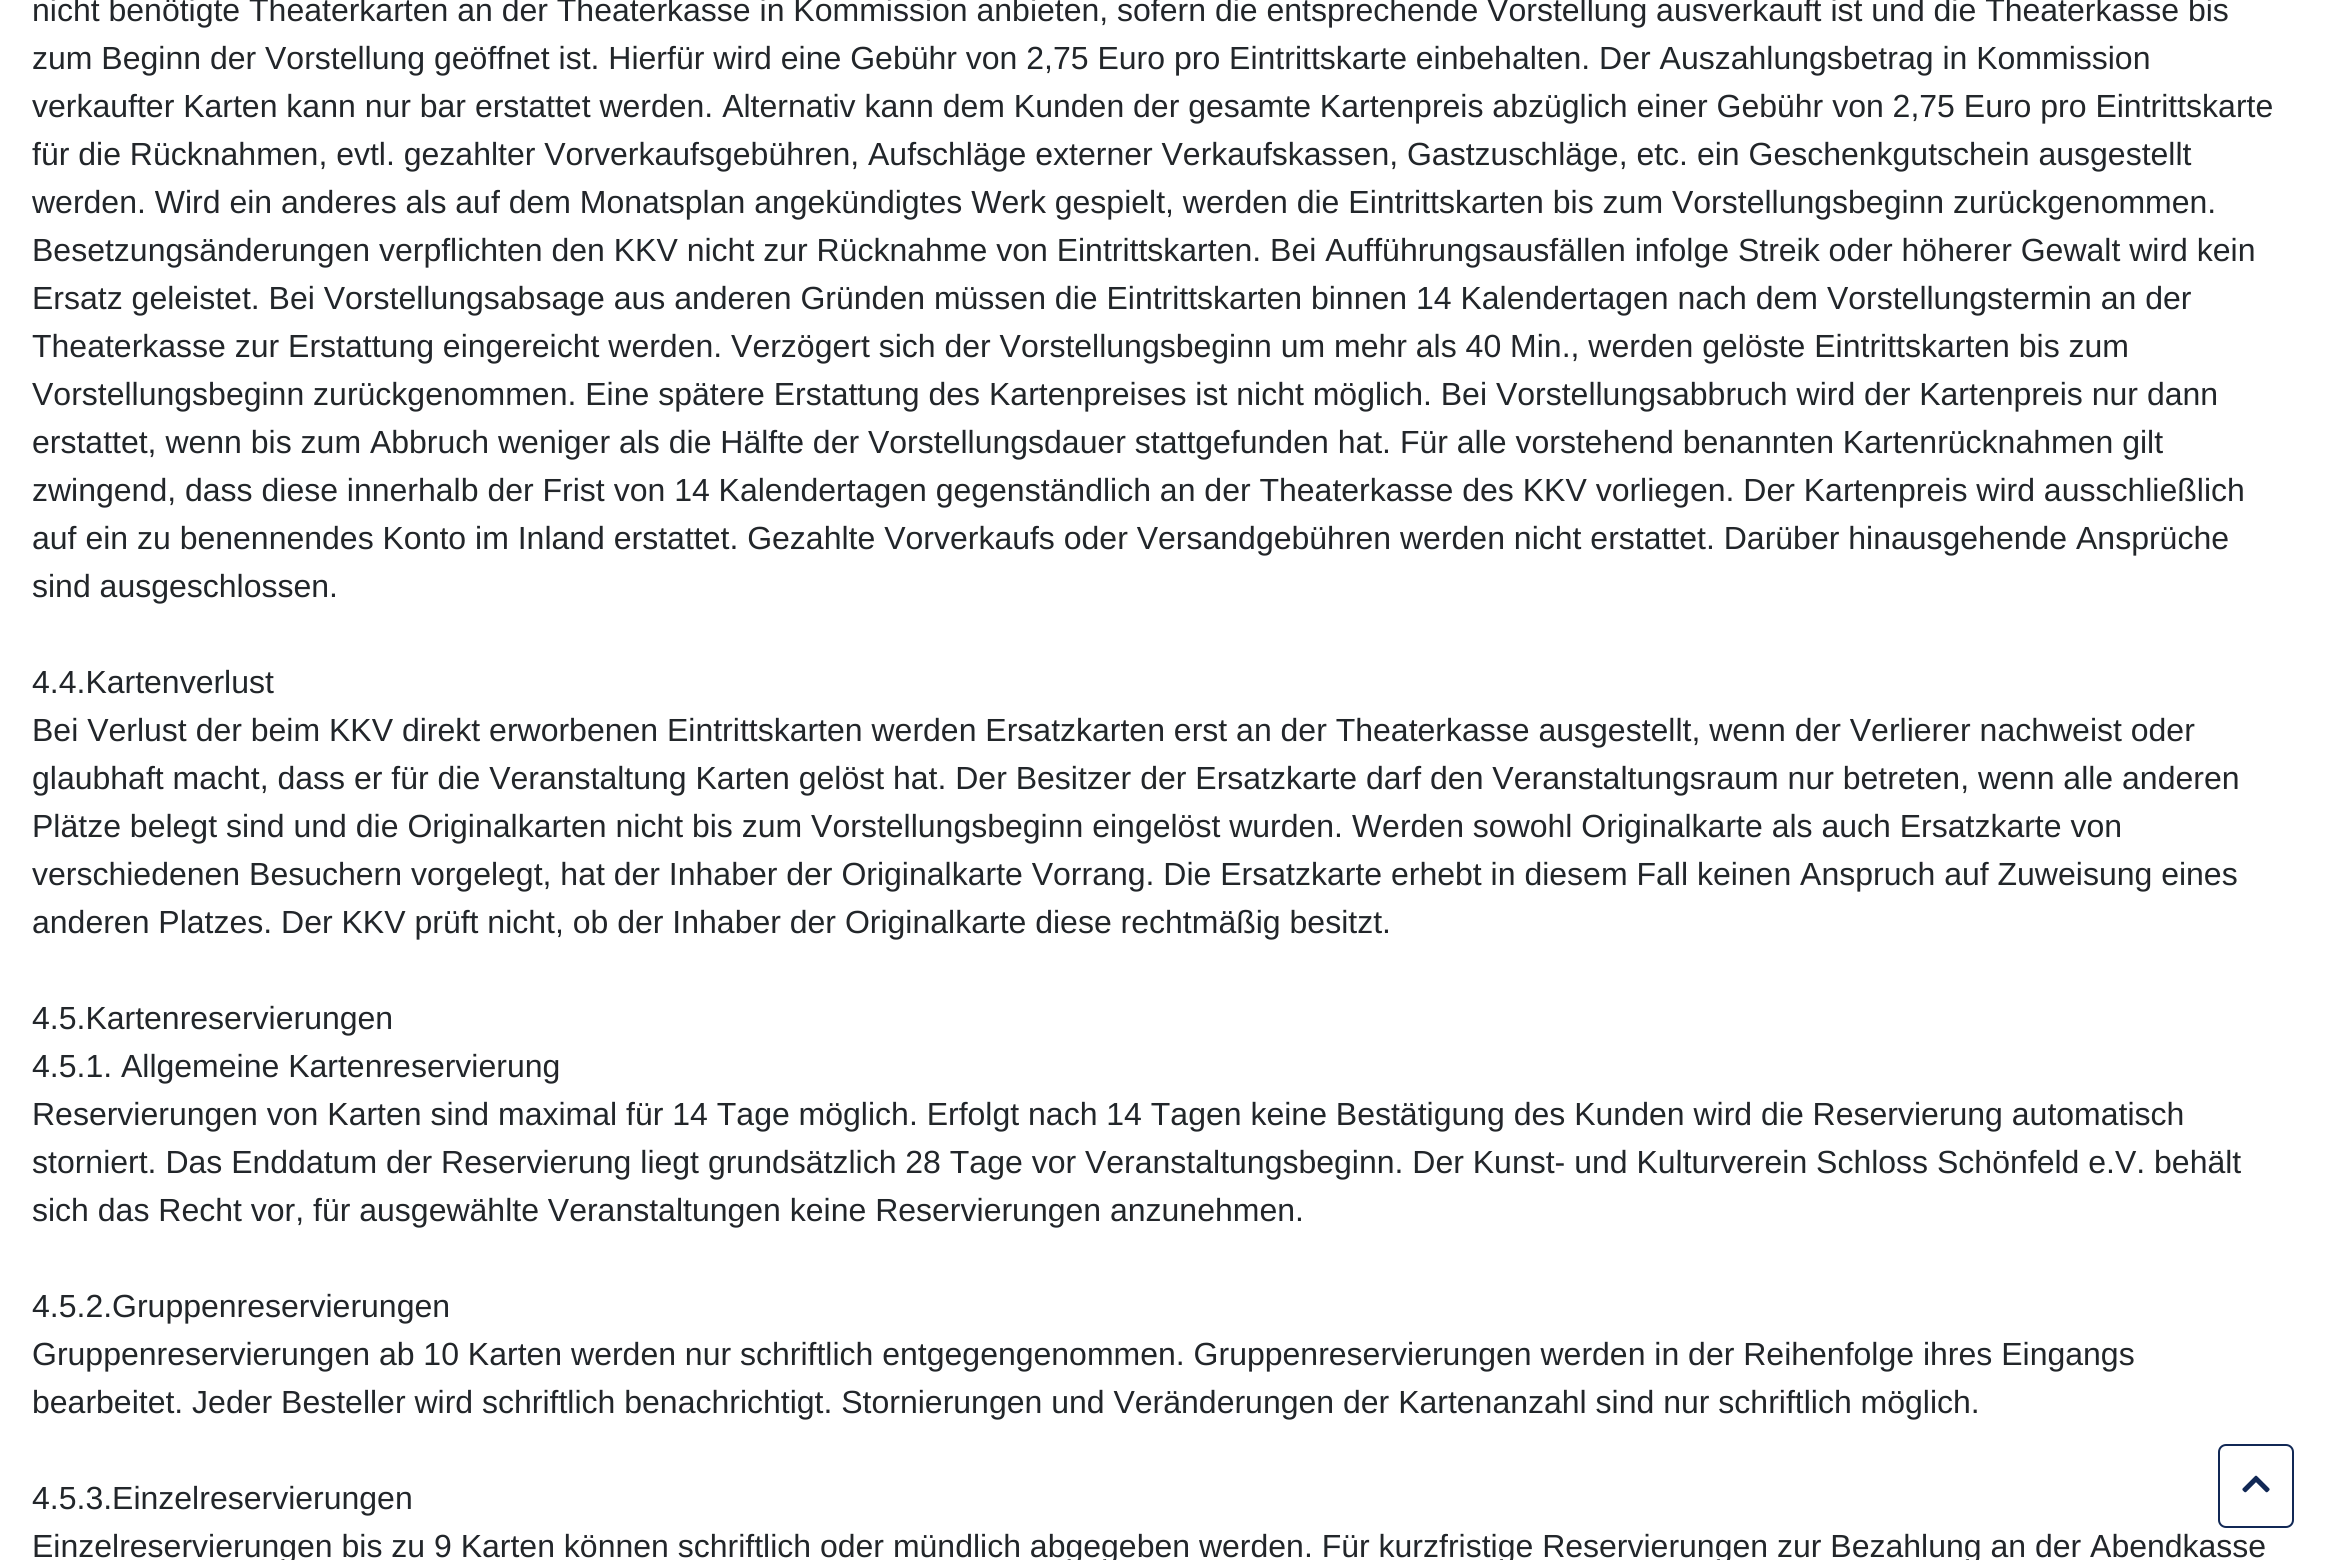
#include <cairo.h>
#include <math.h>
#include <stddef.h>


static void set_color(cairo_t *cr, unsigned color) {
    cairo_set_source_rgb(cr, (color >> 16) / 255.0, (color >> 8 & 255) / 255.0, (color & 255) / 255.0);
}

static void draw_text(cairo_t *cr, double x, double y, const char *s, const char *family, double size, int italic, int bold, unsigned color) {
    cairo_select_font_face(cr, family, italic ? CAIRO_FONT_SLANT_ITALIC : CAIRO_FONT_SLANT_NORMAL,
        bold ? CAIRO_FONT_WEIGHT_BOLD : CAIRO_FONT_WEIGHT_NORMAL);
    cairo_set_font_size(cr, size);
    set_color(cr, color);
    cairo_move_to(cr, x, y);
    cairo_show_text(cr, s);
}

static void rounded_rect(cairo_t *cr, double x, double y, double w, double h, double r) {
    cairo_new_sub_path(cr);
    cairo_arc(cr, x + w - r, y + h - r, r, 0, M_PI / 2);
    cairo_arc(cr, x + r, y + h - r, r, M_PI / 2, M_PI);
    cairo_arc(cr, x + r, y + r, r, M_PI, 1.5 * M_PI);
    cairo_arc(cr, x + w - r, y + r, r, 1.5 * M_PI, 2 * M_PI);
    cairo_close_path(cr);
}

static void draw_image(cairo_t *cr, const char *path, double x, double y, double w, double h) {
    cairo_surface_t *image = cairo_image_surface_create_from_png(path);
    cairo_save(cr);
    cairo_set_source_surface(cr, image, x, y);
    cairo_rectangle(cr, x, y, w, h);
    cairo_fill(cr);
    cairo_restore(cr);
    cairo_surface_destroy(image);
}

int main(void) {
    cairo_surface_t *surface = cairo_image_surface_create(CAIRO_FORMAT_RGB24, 2325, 1560);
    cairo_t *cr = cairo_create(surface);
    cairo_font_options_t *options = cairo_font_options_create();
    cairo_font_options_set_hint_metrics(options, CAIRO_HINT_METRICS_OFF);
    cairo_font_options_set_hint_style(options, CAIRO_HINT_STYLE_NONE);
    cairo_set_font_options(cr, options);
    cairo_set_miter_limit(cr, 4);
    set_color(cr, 0xFFFFFF);
    cairo_paint(cr);
    draw_text(cr, 32, 21, "nicht benötigte Theaterkarten an der Theaterkasse in Kommission anbieten, sofern die entsprechende Vorstellung ausverkauft ist und die Theaterkasse bis", "Liberation Sans", 32, 0, 0, 0x22262A);
    draw_text(cr, 32, 69, "zum Beginn der Vorstellung geöffnet ist. Hierfür wird eine Gebühr von 2,75 Euro pro Eintrittskarte einbehalten. Der Auszahlungsbetrag in Kommission", "Liberation Sans", 32, 0, 0, 0x22262A);
    draw_text(cr, 32, 117, "verkaufter Karten kann nur bar erstattet werden. Alternativ kann dem Kunden der gesamte Kartenpreis abzüglich einer Gebühr von 2,75 Euro pro Eintrittskarte", "Liberation Sans", 32, 0, 0, 0x22262A);
    draw_text(cr, 32, 165, "für die Rücknahmen, evtl. gezahlter Vorverkaufsgebühren, Aufschläge externer Verkaufskassen, Gastzuschläge, etc. ein Geschenkgutschein ausgestellt", "Liberation Sans", 32, 0, 0, 0x22262A);
    draw_text(cr, 32, 213, "werden. Wird ein anderes als auf dem Monatsplan angekündigtes Werk gespielt, werden die Eintrittskarten bis zum Vorstellungsbeginn zurückgenommen.", "Liberation Sans", 32, 0, 0, 0x22262A);
    draw_text(cr, 32, 261, "Besetzungsänderungen verpflichten den KKV nicht zur Rücknahme von Eintrittskarten. Bei Aufführungsausfällen infolge Streik oder höherer Gewalt wird kein", "Liberation Sans", 32, 0, 0, 0x22262A);
    draw_text(cr, 32, 309, "Ersatz geleistet. Bei Vorstellungsabsage aus anderen Gründen müssen die Eintrittskarten binnen 14 Kalendertagen nach dem Vorstellungstermin an der", "Liberation Sans", 32, 0, 0, 0x22262A);
    draw_text(cr, 32, 357, "Theaterkasse zur Erstattung eingereicht werden. Verzögert sich der Vorstellungsbeginn um mehr als 40 Min., werden gelöste Eintrittskarten bis zum", "Liberation Sans", 32, 0, 0, 0x22262A);
    draw_text(cr, 32, 405, "Vorstellungsbeginn zurückgenommen. Eine spätere Erstattung des Kartenpreises ist nicht möglich. Bei Vorstellungsabbruch wird der Kartenpreis nur dann", "Liberation Sans", 32, 0, 0, 0x22262A);
    draw_text(cr, 32, 453, "erstattet, wenn bis zum Abbruch weniger als die Hälfte der Vorstellungsdauer stattgefunden hat. Für alle vorstehend benannten Kartenrücknahmen gilt", "Liberation Sans", 32, 0, 0, 0x22262A);
    draw_text(cr, 32, 501, "zwingend, dass diese innerhalb der Frist von 14 Kalendertagen gegenständlich an der Theaterkasse des KKV vorliegen. Der Kartenpreis wird ausschließlich", "Liberation Sans", 32, 0, 0, 0x22262A);
    draw_text(cr, 32, 549, "auf ein zu benennendes Konto im Inland erstattet. Gezahlte Vorverkaufs oder Versandgebühren werden nicht erstattet. Darüber hinausgehende Ansprüche", "Liberation Sans", 32, 0, 0, 0x22262A);
    draw_text(cr, 32, 597, "sind ausgeschlossen.", "Liberation Sans", 32, 0, 0, 0x22262A);
    draw_text(cr, 32, 693, "4.4.Kartenverlust", "Liberation Sans", 32, 0, 0, 0x22262A);
    draw_text(cr, 32, 741, "Bei Verlust der beim KKV direkt erworbenen Eintrittskarten werden Ersatzkarten erst an der Theaterkasse ausgestellt, wenn der Verlierer nachweist oder", "Liberation Sans", 32, 0, 0, 0x22262A);
    draw_text(cr, 32, 789, "glaubhaft macht, dass er für die Veranstaltung Karten gelöst hat. Der Besitzer der Ersatzkarte darf den Veranstaltungsraum nur betreten, wenn alle anderen", "Liberation Sans", 32, 0, 0, 0x22262A);
    draw_text(cr, 32, 837, "Plätze belegt sind und die Originalkarten nicht bis zum Vorstellungsbeginn eingelöst wurden. Werden sowohl Originalkarte als auch Ersatzkarte von", "Liberation Sans", 32, 0, 0, 0x22262A);
    draw_text(cr, 32, 885, "verschiedenen Besuchern vorgelegt, hat der Inhaber der Originalkarte Vorrang. Die Ersatzkarte erhebt in diesem Fall keinen Anspruch auf Zuweisung eines", "Liberation Sans", 32, 0, 0, 0x22262A);
    draw_text(cr, 32, 933, "anderen Platzes. Der KKV prüft nicht, ob der Inhaber der Originalkarte diese rechtmäßig besitzt.", "Liberation Sans", 32, 0, 0, 0x22262A);
    draw_text(cr, 32, 1029, "4.5.Kartenreservierungen", "Liberation Sans", 32, 0, 0, 0x22262A);
    draw_text(cr, 32, 1077, "4.5.1. Allgemeine Kartenreservierung", "Liberation Sans", 32, 0, 0, 0x22262A);
    draw_text(cr, 32, 1125, "Reservierungen von Karten sind maximal für 14 Tage möglich. Erfolgt nach 14 Tagen keine Bestätigung des Kunden wird die Reservierung automatisch", "Liberation Sans", 32, 0, 0, 0x22262A);
    draw_text(cr, 32, 1173, "storniert. Das Enddatum der Reservierung liegt grundsätzlich 28 Tage vor Veranstaltungsbeginn. Der Kunst- und Kulturverein Schloss Schönfeld e.V. behält", "Liberation Sans", 32, 0, 0, 0x22262A);
    draw_text(cr, 32, 1221, "sich das Recht vor, für ausgewählte Veranstaltungen keine Reservierungen anzunehmen.", "Liberation Sans", 32, 0, 0, 0x22262A);
    draw_text(cr, 32, 1317, "4.5.2.Gruppenreservierungen", "Liberation Sans", 32, 0, 0, 0x22262A);
    draw_text(cr, 32, 1365, "Gruppenreservierungen ab 10 Karten werden nur schriftlich entgegengenommen. Gruppenreservierungen werden in der Reihenfolge ihres Eingangs", "Liberation Sans", 32, 0, 0, 0x22262A);
    draw_text(cr, 32, 1413, "bearbeitet. Jeder Besteller wird schriftlich benachrichtigt. Stornierungen und Veränderungen der Kartenanzahl sind nur schriftlich möglich.", "Liberation Sans", 32, 0, 0, 0x22262A);
    draw_text(cr, 32, 1509, "4.5.3.Einzelreservierungen", "Liberation Sans", 32, 0, 0, 0x22262A);
    draw_text(cr, 32, 1557, "Einzelreservierungen bis zu 9 Karten können schriftlich oder mündlich abgegeben werden. Für kurzfristige Reservierungen zur Bezahlung an der Abendkasse", "Liberation Sans", 32, 0, 0, 0x22262A);
    rounded_rect(cr, 2219, 1445, 74, 82, 7);
    set_color(cr, 0x112855);
    cairo_stroke(cr);
    draw_image(cr, "assets/img1.png", 2242, 1475, 28, 18);
    cairo_surface_write_to_png(surface, "output.png");
    cairo_font_options_destroy(options);
    cairo_destroy(cr);
    cairo_surface_destroy(surface);
    return 0;
}
